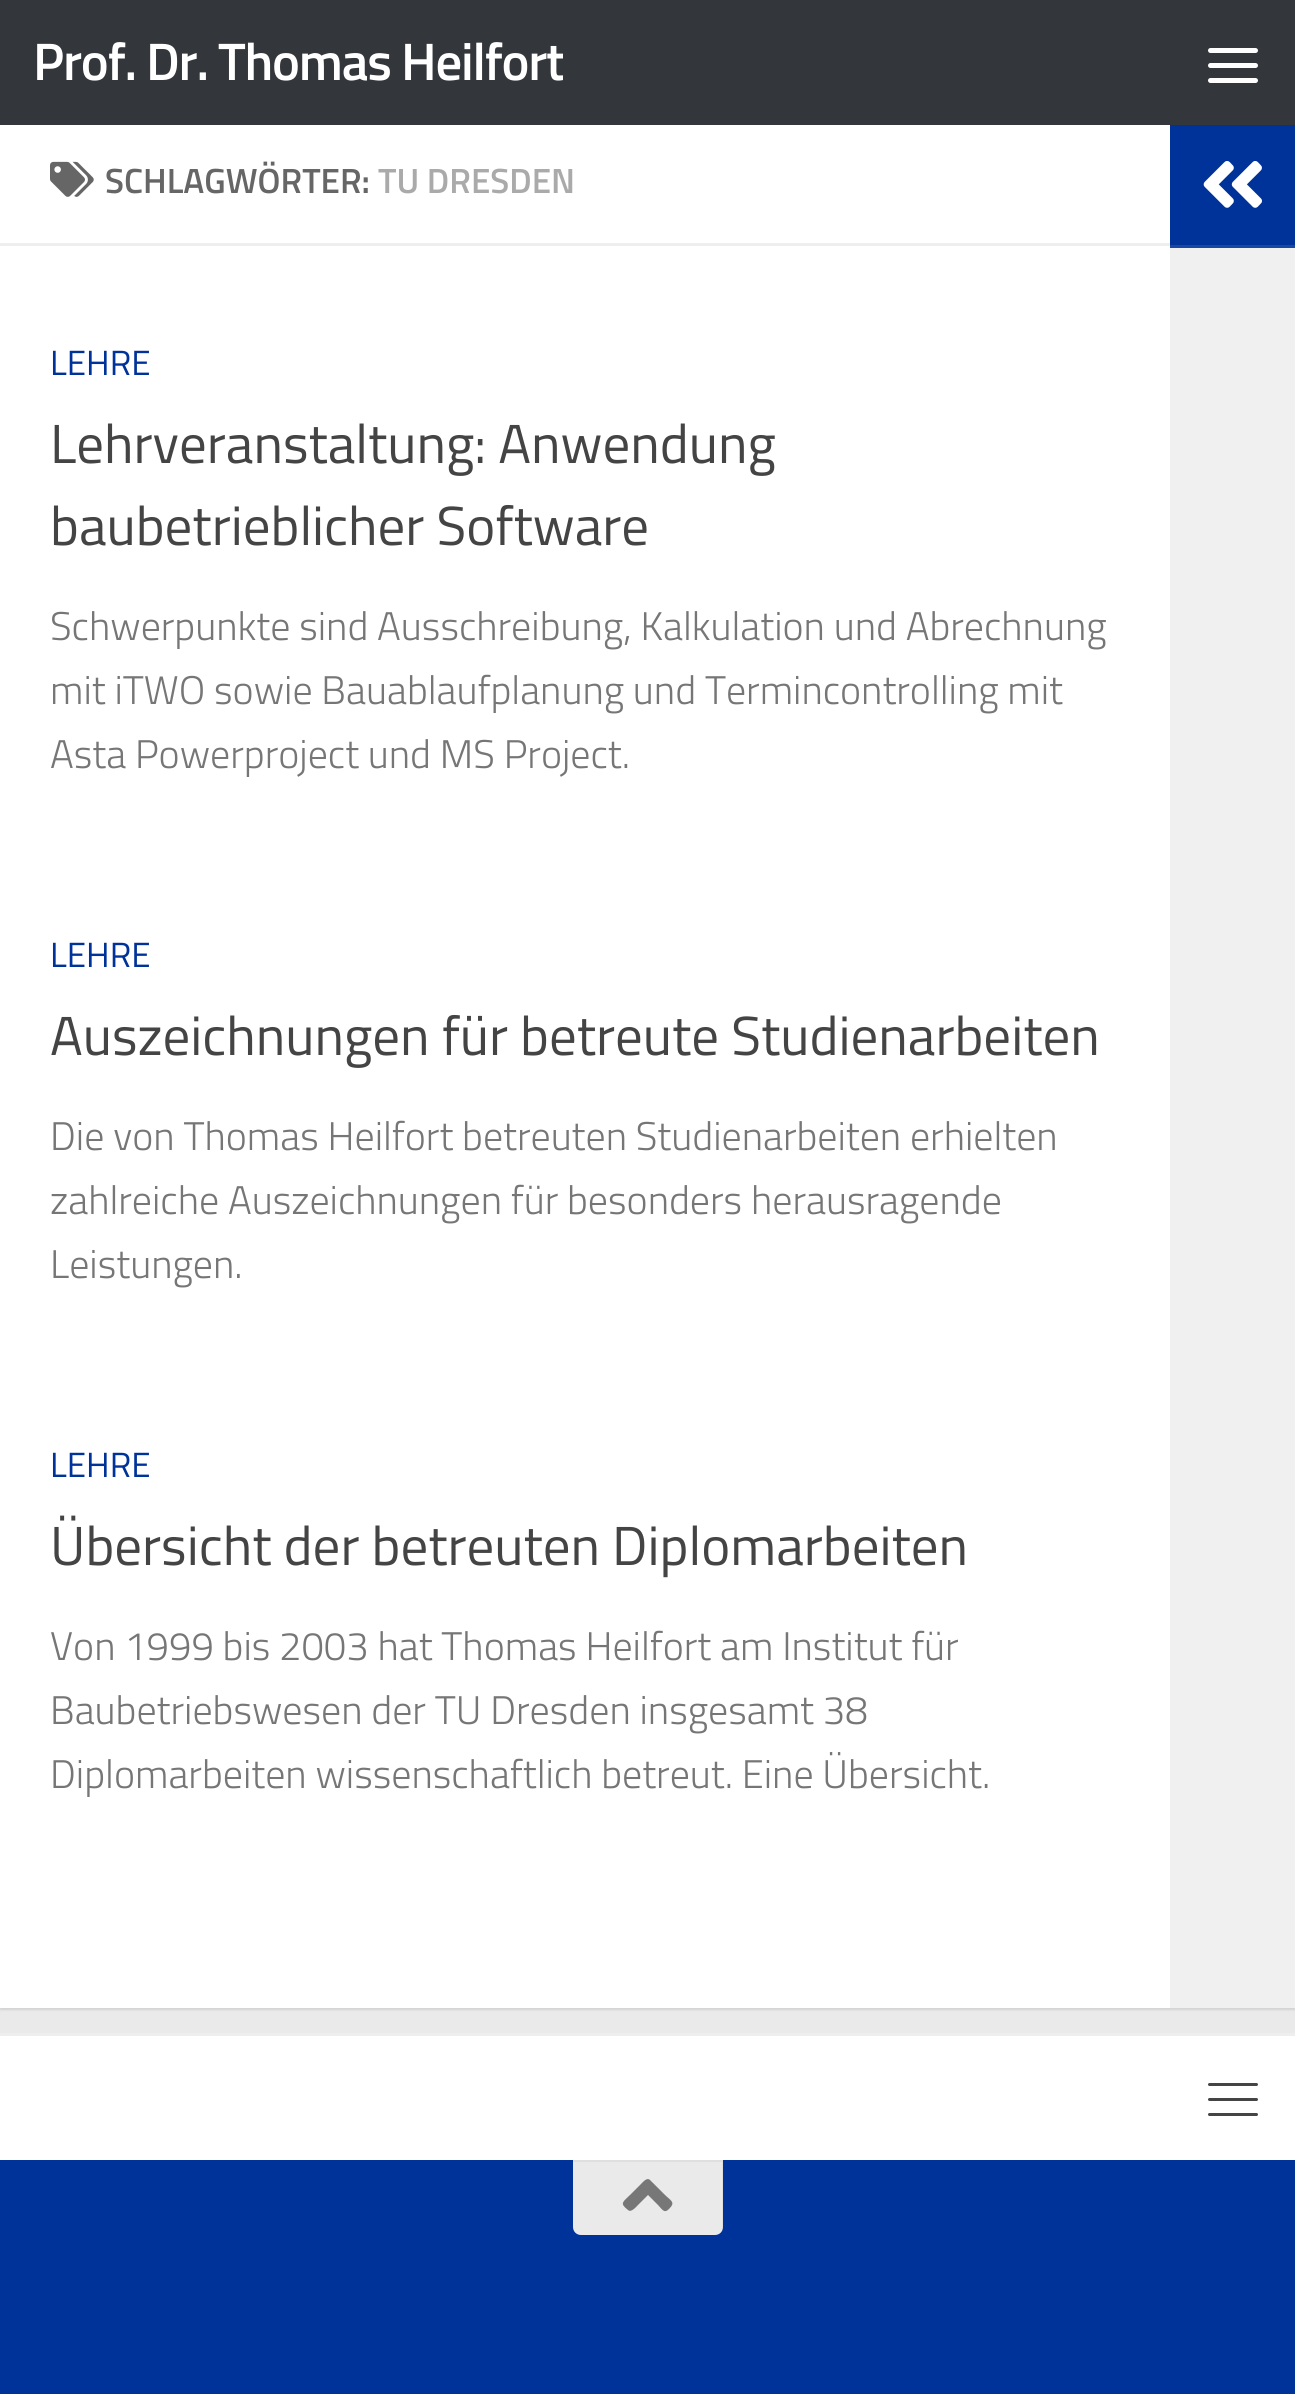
#include <cairo.h>
#include <math.h>
#include <stddef.h>


static void set_color(cairo_t *cr, unsigned color) {
    cairo_set_source_rgb(cr, (color >> 16) / 255.0, (color >> 8 & 255) / 255.0, (color & 255) / 255.0);
}

static void draw_text(cairo_t *cr, double x, double y, const char *s, const char *family, double size, int italic, int bold, unsigned color) {
    cairo_select_font_face(cr, family, italic ? CAIRO_FONT_SLANT_ITALIC : CAIRO_FONT_SLANT_NORMAL,
        bold ? CAIRO_FONT_WEIGHT_BOLD : CAIRO_FONT_WEIGHT_NORMAL);
    cairo_set_font_size(cr, size);
    set_color(cr, color);
    cairo_move_to(cr, x, y);
    cairo_show_text(cr, s);
}

static void draw_spaced(cairo_t *cr, double x, double y, const char *s, double letter, double word) {
    cairo_move_to(cr, x, y);
    while (*s) {
        char ch[5] = {0};
        int n = 0;
        do ch[n++] = *s++; while ((*s & 0xC0) == 0x80);
        cairo_show_text(cr, ch);
        cairo_rel_move_to(cr, letter + word * (*ch == ' '), 0);
    }
}

static void fill_rect(cairo_t *cr, double x, double y, double w, double h, unsigned color) {
    set_color(cr, color);
    cairo_rectangle(cr, x, y, w, h);
    cairo_fill(cr);
}

static void rounded_rect(cairo_t *cr, double x, double y, double w, double h, double r) {
    cairo_new_sub_path(cr);
    cairo_arc(cr, x + w - r, y + h - r, r, 0, M_PI / 2);
    cairo_arc(cr, x + r, y + h - r, r, M_PI / 2, M_PI);
    cairo_arc(cr, x + r, y + r, r, M_PI, 1.5 * M_PI);
    cairo_arc(cr, x + w - r, y + r, r, 1.5 * M_PI, 2 * M_PI);
    cairo_close_path(cr);
}

static void draw_shadow(cairo_t *cr, double x, double y, double w, double h, double r, double blur, double alpha) {
    cairo_push_group_with_content(cr, CAIRO_CONTENT_ALPHA);
    cairo_set_operator(cr, CAIRO_OPERATOR_SOURCE);
    for (int i = 15; i >= -15 && fmin(w, h) + blur * i / 3 > 0; i -= 2) {
        double e = blur * i / 6;
        cairo_set_source_rgba(cr, 0, 0, 0, alpha * erfc((i - 1) / 8.5) / 2);
        rounded_rect(cr, x - e, y - e, w + 2 * e, h + 2 * e, fmax(0, fmin(r + e + blur * .6, fmin(w, h) / 2 + e)));
        cairo_fill(cr);
    }
    cairo_pattern_t *soft = cairo_pop_group(cr);
    cairo_mask(cr, soft);
    cairo_pattern_destroy(soft);
}

static void draw_image(cairo_t *cr, const char *path, double x, double y, double w, double h) {
    cairo_surface_t *image = cairo_image_surface_create_from_png(path);
    cairo_save(cr);
    cairo_set_source_surface(cr, image, x, y);
    cairo_rectangle(cr, x, y, w, h);
    cairo_fill(cr);
    cairo_restore(cr);
    cairo_surface_destroy(image);
}

int main(void) {
    cairo_surface_t *surface = cairo_image_surface_create(CAIRO_FORMAT_RGB24, 1295, 2394);
    cairo_t *cr = cairo_create(surface);
    cairo_font_options_t *options = cairo_font_options_create();
    cairo_font_options_set_hint_metrics(options, CAIRO_HINT_METRICS_OFF);
    cairo_font_options_set_hint_style(options, CAIRO_HINT_STYLE_NONE);
    cairo_set_font_options(cr, options);
    cairo_set_miter_limit(cr, 4);
    set_color(cr, 0xEAEAEA);
    cairo_paint(cr);
    set_color(cr, 0x000000);
    draw_shadow(cr, 0, 125, 1295, 1885, 0, 1, 0.1);
    fill_rect(cr, 0, 0, 1295, 125, 0x33363B);
    cairo_save(cr);
    cairo_rectangle(cr, 33, 0, 530, 125);
    cairo_clip(cr);
    cairo_select_font_face(cr, "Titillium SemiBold", CAIRO_FONT_SLANT_NORMAL, CAIRO_FONT_WEIGHT_NORMAL);
    cairo_set_font_size(cr, 52.75);
    set_color(cr, 0xFFFFFF);
    draw_spaced(cr, 33, 80, "Prof. Dr. Thomas Heilfort", -1.25, 0);
    cairo_restore(cr);
    set_color(cr, 0xFFFFFF);
    rounded_rect(cr, 1208, 48, 50, 5, 2.5);
    cairo_fill(cr);
    rounded_rect(cr, 1208, 63, 50, 5, 2.5);
    cairo_fill(cr);
    rounded_rect(cr, 1208, 78, 50, 5, 2.5);
    cairo_fill(cr);
    fill_rect(cr, 0, 125, 1170, 1883, 0xFFFFFF);
    fill_rect(cr, 0, 243, 1170, 3, 0xEEEEEE);
    draw_image(cr, "assets/img1.png", 50, 161, 44, 36);
    draw_text(cr, 105, 193, "SCHLAGWÖRTER:", "Titillium SemiBold", 35, 0, 0, 0x666666);
    draw_text(cr, 378, 193, "TU DRESDEN", "Titillium SemiBold", 35, 0, 0, 0xAAAAAA);
    draw_text(cr, 50, 375, "LEHRE", "Titillium", 35, 0, 0, 0x003399);
    draw_text(cr, 50, 463, "Lehrveranstaltung: Anwendung", "Titillium", 55, 0, 0, 0x444444);
    draw_text(cr, 50, 545, "baubetrieblicher Software", "Titillium", 55, 0, 0, 0x444444);
    draw_text(cr, 50, 640, "Schwerpunkte sind Ausschreibung, Kalkulation und Abrechnung", "Titillium Light", 40, 0, 0, 0x767676);
    draw_text(cr, 50, 704, "mit iTWO sowie Bauablaufplanung und Termincontrolling mit", "Titillium Light", 40, 0, 0, 0x767676);
    draw_text(cr, 50, 768, "Asta Powerproject und MS Project.", "Titillium Light", 40, 0, 0, 0x767676);
    draw_text(cr, 50, 967, "LEHRE", "Titillium", 35, 0, 0, 0x003399);
    draw_text(cr, 50, 1055, "Auszeichnungen für betreute Studienarbeiten", "Titillium", 55, 0, 0, 0x444444);
    draw_text(cr, 50, 1150, "Die von Thomas Heilfort betreuten Studienarbeiten erhielten", "Titillium Light", 40, 0, 0, 0x767676);
    draw_text(cr, 50, 1214, "zahlreiche Auszeichnungen für besonders herausragende", "Titillium Light", 40, 0, 0, 0x767676);
    draw_text(cr, 50, 1278, "Leistungen.", "Titillium Light", 40, 0, 0, 0x767676);
    draw_text(cr, 50, 1477, "LEHRE", "Titillium", 35, 0, 0, 0x003399);
    draw_text(cr, 50, 1565, "Übersicht der betreuten Diplomarbeiten", "Titillium", 55, 0, 0, 0x444444);
    draw_text(cr, 50, 1660, "Von 1999 bis 2003 hat Thomas Heilfort am Institut für", "Titillium Light", 40, 0, 0, 0x767676);
    draw_text(cr, 50, 1724, "Baubetriebswesen der TU Dresden insgesamt 38", "Titillium Light", 40, 0, 0, 0x767676);
    draw_text(cr, 50, 1788, "Diplomarbeiten wissenschaftlich betreut. Eine Übersicht.", "Titillium Light", 40, 0, 0, 0x767676);
    fill_rect(cr, 1170, 125, 125, 120, 0x003399);
    fill_rect(cr, 1170, 245, 125, 3, 0x1A47A3);
    draw_image(cr, "assets/img2.png", 1203, 161, 59, 47);
    fill_rect(cr, 1170, 248, 125, 1760, 0xF0F0F0);
    fill_rect(cr, 0, 2036, 1295, 124, 0xFFFFFF);
    fill_rect(cr, 0, 2033, 1295, 3, 0xEEEEEE);
    set_color(cr, 0x444444);
    rounded_rect(cr, 1208, 2083, 50, 3, 1.5);
    cairo_fill(cr);
    rounded_rect(cr, 1208, 2098, 50, 3, 1.5);
    cairo_fill(cr);
    rounded_rect(cr, 1208, 2113, 50, 3, 1.5);
    cairo_fill(cr);
    fill_rect(cr, 0, 2160, 1295, 234, 0x003399);
    set_color(cr, 0xEAEAEA);
    cairo_new_path(cr);
    cairo_move_to(cr, 573, 2160);
    cairo_line_to(cr, 723, 2160);
    cairo_line_to(cr, 723, 2227);
    cairo_curve_to(cr, 723, 2231.5, 719.5, 2235, 715, 2235);
    cairo_line_to(cr, 581, 2235);
    cairo_curve_to(cr, 576.5, 2235, 573, 2231.5, 573, 2227);
    cairo_close_path(cr);
    cairo_fill(cr);
    cairo_set_source_rgba(cr, 0, 0, 0, 0.05);
    cairo_new_path(cr);
    cairo_move_to(cr, 573, 2160);
    cairo_line_to(cr, 573, 2162);
    cairo_line_to(cr, 722, 2162);
    cairo_line_to(cr, 722, 2231);
    cairo_curve_to(cr, 723, 2230, 723, 2228, 723, 2227);
    cairo_line_to(cr, 723, 2160);
    cairo_close_path(cr);
    cairo_fill(cr);
    set_color(cr, 0x777777);
    cairo_new_path(cr);
    cairo_move_to(cr, 650, 2180);
    cairo_line_to(cr, 664, 2194);
    cairo_curve_to(cr, 671, 2201, 676, 2202, 669, 2209);
    cairo_curve_to(cr, 664, 2214, 662, 2209, 658, 2205);
    cairo_line_to(cr, 648, 2195);
    cairo_line_to(cr, 638, 2205);
    cairo_curve_to(cr, 636, 2207, 631, 2213, 628, 2210);
    cairo_curve_to(cr, 619, 2203, 623, 2202, 631, 2194);
    cairo_line_to(cr, 641, 2184);
    cairo_curve_to(cr, 643, 2182, 647, 2177, 650, 2180);
    cairo_close_path(cr);
    cairo_fill(cr);
    cairo_surface_write_to_png(surface, "output.png");
    cairo_font_options_destroy(options);
    cairo_destroy(cr);
    cairo_surface_destroy(surface);
    return 0;
}
